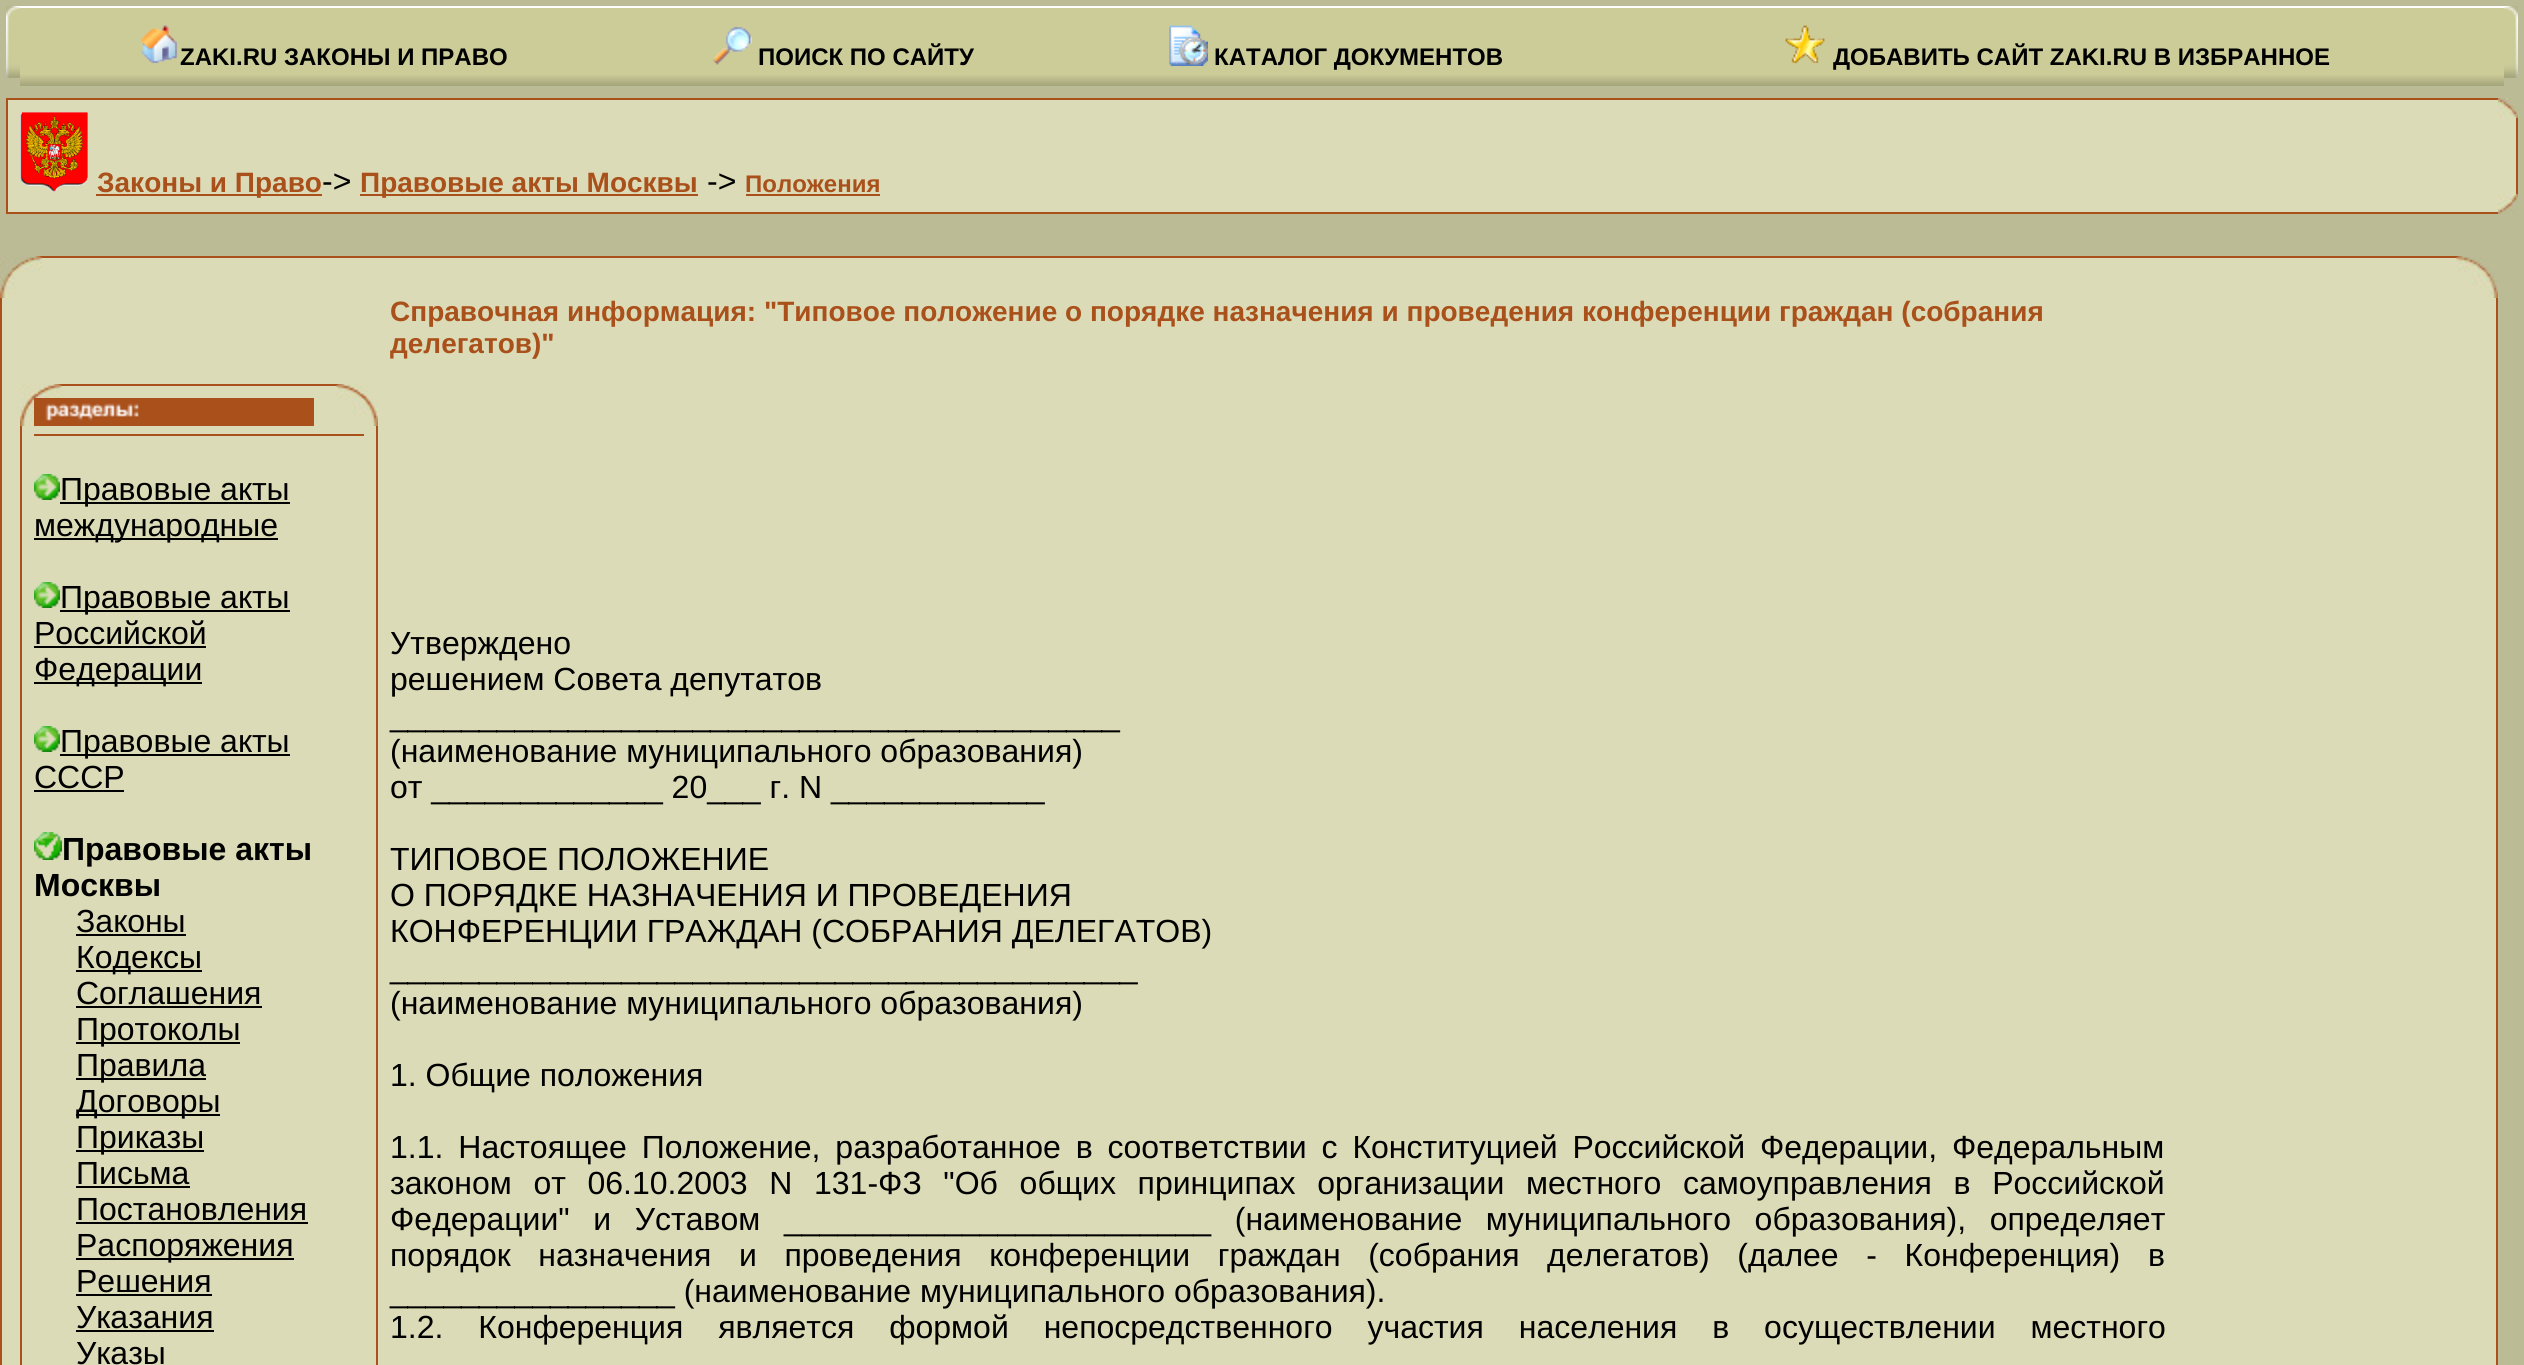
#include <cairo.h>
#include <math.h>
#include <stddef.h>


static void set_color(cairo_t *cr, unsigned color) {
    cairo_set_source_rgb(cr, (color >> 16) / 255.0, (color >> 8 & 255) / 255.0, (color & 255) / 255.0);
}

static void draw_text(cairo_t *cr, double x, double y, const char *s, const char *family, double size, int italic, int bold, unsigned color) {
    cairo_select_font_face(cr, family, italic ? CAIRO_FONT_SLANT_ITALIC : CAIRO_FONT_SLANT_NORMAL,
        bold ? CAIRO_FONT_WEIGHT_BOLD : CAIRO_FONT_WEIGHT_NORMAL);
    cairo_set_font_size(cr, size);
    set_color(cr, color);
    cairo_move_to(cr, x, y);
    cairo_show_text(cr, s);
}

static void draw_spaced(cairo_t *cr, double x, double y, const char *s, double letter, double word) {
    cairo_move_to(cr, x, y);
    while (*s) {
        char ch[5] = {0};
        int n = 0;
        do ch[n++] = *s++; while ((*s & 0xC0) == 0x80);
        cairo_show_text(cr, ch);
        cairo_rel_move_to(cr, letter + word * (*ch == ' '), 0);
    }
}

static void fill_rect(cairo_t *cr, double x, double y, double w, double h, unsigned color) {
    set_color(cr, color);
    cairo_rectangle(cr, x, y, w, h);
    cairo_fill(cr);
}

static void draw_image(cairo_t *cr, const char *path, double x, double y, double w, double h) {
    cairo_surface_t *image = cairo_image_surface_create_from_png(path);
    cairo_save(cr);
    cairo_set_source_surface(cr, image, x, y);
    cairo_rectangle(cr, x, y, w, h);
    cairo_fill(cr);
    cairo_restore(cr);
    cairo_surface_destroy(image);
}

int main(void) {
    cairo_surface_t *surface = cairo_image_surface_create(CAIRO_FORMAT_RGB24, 2524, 1365);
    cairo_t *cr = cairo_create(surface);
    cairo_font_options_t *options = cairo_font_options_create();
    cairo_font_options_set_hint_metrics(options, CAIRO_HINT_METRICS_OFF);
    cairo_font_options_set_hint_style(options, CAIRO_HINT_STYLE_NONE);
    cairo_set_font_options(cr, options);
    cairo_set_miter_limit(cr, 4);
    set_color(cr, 0xBBBB95);
    cairo_paint(cr);
    draw_image(cr, "assets/img1.png", 6, 6, 14, 72);
    fill_rect(cr, 20, 8, 2484, 67, 0xCCCC99);
    draw_image(cr, "assets/img2.png", 20, 75, 2484, 11);
    fill_rect(cr, 20, 6, 2484, 2, 0xFFFFFF);
    draw_image(cr, "assets/img3.png", 141, 25, 37, 39);
    draw_text(cr, 180, 65, "ZAKI.RU ЗАКОНЫ И ПРАВО", "Liberation Sans", 24, 0, 1, 0x000000);
    draw_image(cr, "assets/img4.png", 713, 27, 39, 38);
    draw_text(cr, 758, 65, "ПОИСК ПО САЙТУ", "Liberation Sans", 24, 0, 1, 0x000000);
    draw_image(cr, "assets/img5.png", 1169, 25, 39, 41);
    draw_text(cr, 1214, 65, "КАТАЛОГ ДОКУМЕНТОВ", "Liberation Sans", 24, 0, 1, 0x000000);
    draw_image(cr, "assets/img6.png", 1785, 25, 40, 39);
    draw_text(cr, 1833, 65, "ДОБАВИТЬ САЙТ ZAKI.RU В ИЗБРАННОЕ", "Liberation Sans", 24, 0, 1, 0x000000);
    draw_image(cr, "assets/img7.png", 2504, 6, 14, 72);
    fill_rect(cr, 8, 100, 2508, 112, 0xDBDBB7);
    fill_rect(cr, 6, 98, 2492, 2, 0xAA501B);
    fill_rect(cr, 6, 212, 2492, 2, 0xAA501B);
    fill_rect(cr, 6, 100, 2, 112, 0xAA501B);
    fill_rect(cr, 2516, 118, 2, 76, 0xAA501B);
    draw_image(cr, "assets/img8.png", 2498, 194, 20, 20);
    draw_image(cr, "assets/img9.png", 2498, 98, 20, 20);
    draw_image(cr, "assets/img10.png", 20, 112, 68, 80);
    fill_rect(cr, 96, 194, 226, 2, 0xA9501B);
    draw_text(cr, 97, 192, "Законы и Право", "Liberation Sans", 28, 0, 1, 0xA9501B);
    draw_text(cr, 322, 192, "->", "Liberation Sans", 32, 0, 0, 0x000000);
    fill_rect(cr, 360, 194, 338, 2, 0xA9501B);
    draw_text(cr, 360, 192, "Правовые акты Москвы", "Liberation Sans", 28, 0, 1, 0xA9501B);
    draw_text(cr, 707, 192, "->", "Liberation Sans", 32, 0, 0, 0x000000);
    draw_text(cr, 745, 192, "Положения", "Liberation Sans", 24, 0, 1, 0xA9501B);
    fill_rect(cr, 746, 194, 134, 2, 0xA9501B);
    fill_rect(cr, 2, 258, 2494, 1107, 0xDBDBB7);
    fill_rect(cr, 42, 256, 2414, 2, 0xAA501B);
    fill_rect(cr, 0, 298, 2, 1067, 0xAA501B);
    fill_rect(cr, 2496, 298, 2, 1067, 0xAA501B);
    draw_image(cr, "assets/img11.png", 0, 256, 42, 42);
    draw_image(cr, "assets/img12.png", 2456, 256, 42, 42);
    fill_rect(cr, 62, 384, 274, 2, 0xAA501B);
    fill_rect(cr, 20, 426, 2, 939, 0xAA501B);
    fill_rect(cr, 376, 426, 2, 939, 0xAA501B);
    draw_image(cr, "assets/img13.png", 20, 384, 42, 42);
    draw_image(cr, "assets/img14.png", 336, 384, 42, 42);
    draw_image(cr, "assets/img15.png", 34, 398, 280, 28);
    fill_rect(cr, 34, 434, 330, 2, 0xA9501B);
    draw_image(cr, "assets/img16.png", 34, 474, 26, 26);
    fill_rect(cr, 60, 502, 230, 2, 0x000000);
    draw_text(cr, 60, 500, "Правовые акты", "Liberation Sans", 32, 0, 0, 0x000000);
    fill_rect(cr, 34, 538, 244, 2, 0x000000);
    draw_text(cr, 34, 536, "международные", "Liberation Sans", 32, 0, 0, 0x000000);
    draw_image(cr, "assets/img16.png", 34, 582, 26, 26);
    fill_rect(cr, 60, 610, 230, 2, 0x000000);
    draw_text(cr, 60, 608, "Правовые акты", "Liberation Sans", 32, 0, 0, 0x000000);
    draw_text(cr, 34, 644, "Российской", "Liberation Sans", 32, 0, 0, 0x000000);
    fill_rect(cr, 34, 646, 172, 2, 0x000000);
    fill_rect(cr, 34, 682, 168, 2, 0x000000);
    draw_text(cr, 34, 680, "Федерации", "Liberation Sans", 32, 0, 0, 0x000000);
    draw_image(cr, "assets/img16.png", 34, 726, 26, 26);
    fill_rect(cr, 60, 754, 230, 2, 0x000000);
    draw_text(cr, 60, 752, "Правовые акты", "Liberation Sans", 32, 0, 0, 0x000000);
    draw_text(cr, 34, 788, "СССР", "Liberation Sans", 32, 0, 0, 0x000000);
    fill_rect(cr, 34, 790, 90, 2, 0x000000);
    draw_image(cr, "assets/img17.png", 34, 832, 28, 28);
    draw_text(cr, 62, 860, "Правовые акты", "Liberation Sans", 32, 0, 1, 0x000000);
    draw_text(cr, 34, 896, "Москвы", "Liberation Sans", 32, 0, 1, 0x000000);
    draw_text(cr, 76, 932, "Законы", "Liberation Sans", 32, 0, 0, 0x000000);
    fill_rect(cr, 76, 934, 110, 2, 0x000000);
    fill_rect(cr, 76, 970, 126, 2, 0x000000);
    draw_text(cr, 76, 968, "Кодексы", "Liberation Sans", 32, 0, 0, 0x000000);
    draw_text(cr, 76, 1004, "Соглашения", "Liberation Sans", 32, 0, 0, 0x000000);
    fill_rect(cr, 76, 1006, 186, 2, 0x000000);
    fill_rect(cr, 76, 1042, 164, 2, 0x000000);
    draw_text(cr, 76, 1040, "Протоколы", "Liberation Sans", 32, 0, 0, 0x000000);
    fill_rect(cr, 76, 1078, 130, 2, 0x000000);
    draw_text(cr, 76, 1076, "Правила", "Liberation Sans", 32, 0, 0, 0x000000);
    fill_rect(cr, 76, 1114, 144, 2, 0x000000);
    draw_text(cr, 76, 1112, "Договоры", "Liberation Sans", 32, 0, 0, 0x000000);
    fill_rect(cr, 76, 1150, 128, 2, 0x000000);
    draw_text(cr, 76, 1148, "Приказы", "Liberation Sans", 32, 0, 0, 0x000000);
    draw_text(cr, 76, 1184, "Письма", "Liberation Sans", 32, 0, 0, 0x000000);
    fill_rect(cr, 76, 1186, 114, 2, 0x000000);
    draw_text(cr, 76, 1220, "Постановления", "Liberation Sans", 32, 0, 0, 0x000000);
    fill_rect(cr, 76, 1222, 232, 2, 0x000000);
    fill_rect(cr, 76, 1258, 218, 2, 0x000000);
    draw_text(cr, 76, 1256, "Распоряжения", "Liberation Sans", 32, 0, 0, 0x000000);
    draw_text(cr, 76, 1292, "Решения", "Liberation Sans", 32, 0, 0, 0x000000);
    fill_rect(cr, 76, 1294, 136, 2, 0x000000);
    draw_text(cr, 76, 1328, "Указания", "Liberation Sans", 32, 0, 0, 0x000000);
    fill_rect(cr, 76, 1330, 138, 2, 0x000000);
    draw_text(cr, 76, 1364, "Указы", "Liberation Sans", 32, 0, 0, 0x000000);
    draw_text(cr, 390, 321, "Справочная информация: \"Типовое положение о порядке назначения и проведения конференции граждан (собрания", "Liberation Sans", 28, 0, 1, 0xA9501B);
    draw_text(cr, 390, 353, "делегатов)\"", "Liberation Sans", 28, 0, 1, 0xA9501B);
    draw_text(cr, 390, 654, "Утверждено", "Liberation Sans", 32, 0, 0, 0x000000);
    draw_text(cr, 390, 690, "решением Совета депутатов", "Liberation Sans", 32, 0, 0, 0x000000);
    draw_text(cr, 390, 726, "_________________________________________", "Liberation Sans", 32, 0, 0, 0x000000);
    draw_text(cr, 390, 762, "(наименование муниципального образования)", "Liberation Sans", 32, 0, 0, 0x000000);
    draw_text(cr, 390, 798, "от _____________ 20___ г. N ____________", "Liberation Sans", 32, 0, 0, 0x000000);
    draw_text(cr, 390, 870, "ТИПОВОЕ ПОЛОЖЕНИЕ", "Liberation Sans", 32, 0, 0, 0x000000);
    draw_text(cr, 390, 906, "О ПОРЯДКЕ НАЗНАЧЕНИЯ И ПРОВЕДЕНИЯ", "Liberation Sans", 32, 0, 0, 0x000000);
    draw_text(cr, 390, 942, "КОНФЕРЕНЦИИ ГРАЖДАН (СОБРАНИЯ ДЕЛЕГАТОВ)", "Liberation Sans", 32, 0, 0, 0x000000);
    draw_text(cr, 390, 978, "__________________________________________", "Liberation Sans", 32, 0, 0, 0x000000);
    draw_text(cr, 390, 1014, "(наименование муниципального образования)", "Liberation Sans", 32, 0, 0, 0x000000);
    draw_text(cr, 390, 1086, "1. Общие положения", "Liberation Sans", 32, 0, 0, 0x000000);
    draw_spaced(cr, 390, 1158, "1.1. Настоящее Положение, разработанное в соответствии с Конституцией Российской Федерации, Федеральным", 0, 6);
    draw_spaced(cr, 390, 1194, "законом от 06.10.2003 N 131-ФЗ \"Об общих принципах организации местного самоуправления в Российской", 0, 12.75);
    draw_spaced(cr, 390, 1230, "Федерации\" и Уставом ________________________ (наименование муниципального образования), определяет", 0, 14.75);
    draw_spaced(cr, 390, 1266, "порядок назначения и проведения конференции граждан (собрания делегатов) (далее - Конференция) в", 0, 18.75);
    draw_text(cr, 390, 1302, "________________ (наименование муниципального образования).", "Liberation Sans", 32, 0, 0, 0x000000);
    draw_spaced(cr, 390, 1338, "1.2. Конференция является формой непосредственного участия населения в осуществлении местного", 0, 26);
    cairo_surface_write_to_png(surface, "output.png");
    cairo_font_options_destroy(options);
    cairo_destroy(cr);
    cairo_surface_destroy(surface);
    return 0;
}
